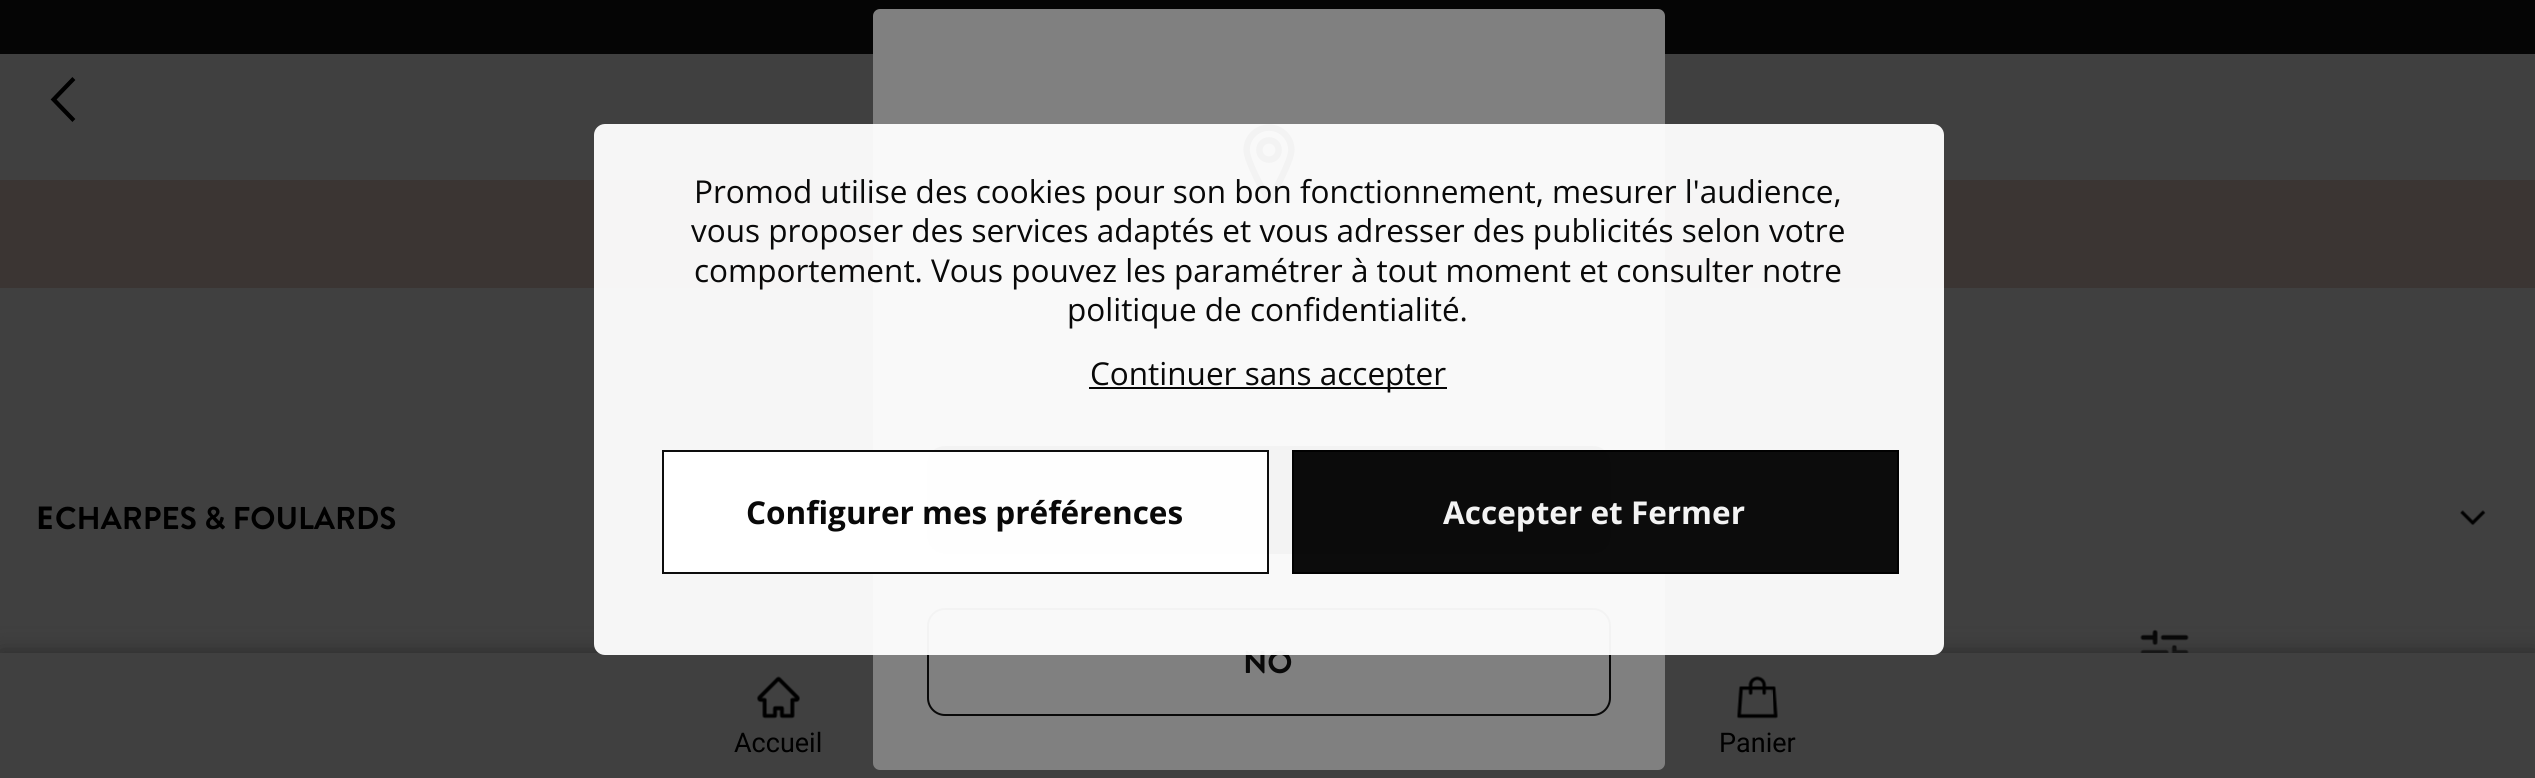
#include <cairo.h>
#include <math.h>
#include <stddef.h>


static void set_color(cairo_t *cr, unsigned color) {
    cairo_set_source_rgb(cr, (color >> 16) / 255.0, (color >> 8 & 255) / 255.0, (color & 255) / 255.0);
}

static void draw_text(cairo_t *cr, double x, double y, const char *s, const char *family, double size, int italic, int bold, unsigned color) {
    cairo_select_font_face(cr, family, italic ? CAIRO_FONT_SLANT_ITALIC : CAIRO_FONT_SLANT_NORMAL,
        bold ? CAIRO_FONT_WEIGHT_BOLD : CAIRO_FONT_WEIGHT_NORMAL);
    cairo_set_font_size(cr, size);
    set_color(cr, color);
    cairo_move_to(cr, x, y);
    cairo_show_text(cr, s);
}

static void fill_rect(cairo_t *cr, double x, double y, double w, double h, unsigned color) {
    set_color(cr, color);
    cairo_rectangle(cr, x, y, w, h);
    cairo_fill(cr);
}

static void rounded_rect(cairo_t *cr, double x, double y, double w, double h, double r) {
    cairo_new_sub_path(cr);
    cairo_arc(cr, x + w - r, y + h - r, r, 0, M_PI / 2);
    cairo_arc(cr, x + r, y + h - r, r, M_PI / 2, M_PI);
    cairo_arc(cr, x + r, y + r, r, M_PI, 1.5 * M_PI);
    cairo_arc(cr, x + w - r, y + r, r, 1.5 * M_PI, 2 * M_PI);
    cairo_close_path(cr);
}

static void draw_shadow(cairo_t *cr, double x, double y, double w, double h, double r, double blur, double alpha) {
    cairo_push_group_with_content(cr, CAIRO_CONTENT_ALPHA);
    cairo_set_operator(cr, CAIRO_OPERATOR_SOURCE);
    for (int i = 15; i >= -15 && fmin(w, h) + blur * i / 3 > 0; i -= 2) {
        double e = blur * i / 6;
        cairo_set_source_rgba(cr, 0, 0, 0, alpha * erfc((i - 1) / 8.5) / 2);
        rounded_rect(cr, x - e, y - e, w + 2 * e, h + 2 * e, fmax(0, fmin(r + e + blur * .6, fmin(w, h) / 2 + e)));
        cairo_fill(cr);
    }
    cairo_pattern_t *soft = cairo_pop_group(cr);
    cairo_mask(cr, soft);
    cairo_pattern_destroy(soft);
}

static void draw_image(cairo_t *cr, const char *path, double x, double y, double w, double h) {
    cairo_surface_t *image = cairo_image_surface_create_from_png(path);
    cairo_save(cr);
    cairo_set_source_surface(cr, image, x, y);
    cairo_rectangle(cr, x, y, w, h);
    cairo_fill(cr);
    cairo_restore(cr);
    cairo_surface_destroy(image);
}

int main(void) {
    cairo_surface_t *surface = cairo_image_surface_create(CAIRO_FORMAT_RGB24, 2535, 778);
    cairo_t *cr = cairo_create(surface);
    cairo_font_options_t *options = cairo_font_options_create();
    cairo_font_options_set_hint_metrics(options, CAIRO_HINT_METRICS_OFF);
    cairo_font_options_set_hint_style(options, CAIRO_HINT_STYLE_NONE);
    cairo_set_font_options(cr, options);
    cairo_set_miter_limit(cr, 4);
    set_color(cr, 0x404040);
    cairo_paint(cr);
    fill_rect(cr, 0, 180, 2535, 108, 0x3B3533);
    fill_rect(cr, 0, 0, 2535, 54, 0x050505);
    draw_image(cr, "assets/img2.png", 2140, 629, 49, 24);
    set_color(cr, 0x2A2A2A);
    draw_shadow(cr, 0, 653, 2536, 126, 0, 11, 1);
    fill_rect(cr, 0, 653, 2535, 125, 0x404040);
    set_color(cr, 0x808080);
    rounded_rect(cr, 873, 9, 792, 761, 7);
    cairo_fill(cr);
    draw_image(cr, "assets/img4.png", 1243, 124, 52, 81);
    set_color(cr, 0x090909);
    rounded_rect(cr, 928, 447, 682, 106, 17);
    cairo_fill_preserve(cr);
    cairo_stroke(cr);
    rounded_rect(cr, 928, 609, 682, 106, 17);
    cairo_stroke(cr);
    draw_text(cr, 1243, 673, "NO", "Brandon Grotesque", 31.5, 0, 1, 0x090909);
    cairo_set_source_rgba(cr, 1, 1, 1, 0.95);
    rounded_rect(cr, 594, 124, 1350, 531, 11);
    cairo_fill(cr);
    draw_text(cr, 694, 203, "Promod utilise des cookies pour son bon fonctionnement, mesurer l'audience,", "Open Sans", 31.5, 0, 0, 0x090909);
    draw_text(cr, 691, 242, "vous proposer des services adaptés et vous adresser des publicités selon votre", "Open Sans", 31.5, 0, 0, 0x090909);
    draw_text(cr, 694, 282, "comportement. Vous pouvez les paramétrer à tout moment et consulter notre", "Open Sans", 31.5, 0, 0, 0x090909);
    draw_text(cr, 1067, 321, "politique de confidentialité.", "Open Sans", 31.5, 0, 0, 0x090909);
    fill_rect(cr, 1089, 387, 358, 2, 0x060606);
    draw_text(cr, 1090, 385, "Continuer sans accepter", "Open Sans", 31.5, 0, 0, 0x090909);
    cairo_set_source_rgba(cr, 1, 1, 1, 0.95);
    cairo_rectangle(cr, 663, 451, 605, 122);
    cairo_fill_preserve(cr);
    set_color(cr, 0x0D0D0D);
    cairo_stroke(cr);
    draw_text(cr, 746, 524, "Configurer mes préférences", "Open Sans", 31.5, 0, 1, 0x090909);
    cairo_set_source_rgba(cr, 0, 0, 0, 0.95);
    cairo_rectangle(cr, 1293, 451, 605, 122);
    cairo_fill_preserve(cr);
    set_color(cr, 0x010101);
    cairo_stroke(cr);
    draw_text(cr, 1443, 524, "Accepter et Fermer", "Open Sans", 31.5, 0, 1, 0xF3F3F3);
    draw_text(cr, 36, 529, "E", "Noto Sans", 31.5, 0, 1, 0x000000);
    draw_text(cr, 55, 529, "CHARPES & FOULARDS", "Brandon Grotesque", 31.5, 0, 1, 0x000000);
    draw_image(cr, "assets/img1.png", 2460, 510, 26, 16);
    draw_image(cr, "assets/img3.png", 50, 77, 26, 45);
    draw_image(cr, "assets/img5.png", 756, 676, 44, 43);
    draw_text(cr, 734, 752, "Accueil", "Roboto", 27, 0, 0, 0x000000);
    draw_image(cr, "assets/img6.png", 1736, 676, 42, 43);
    draw_text(cr, 1719, 752, "Panier", "Roboto", 27, 0, 0, 0x000000);
    cairo_surface_write_to_png(surface, "output.png");
    cairo_font_options_destroy(options);
    cairo_destroy(cr);
    cairo_surface_destroy(surface);
    return 0;
}
